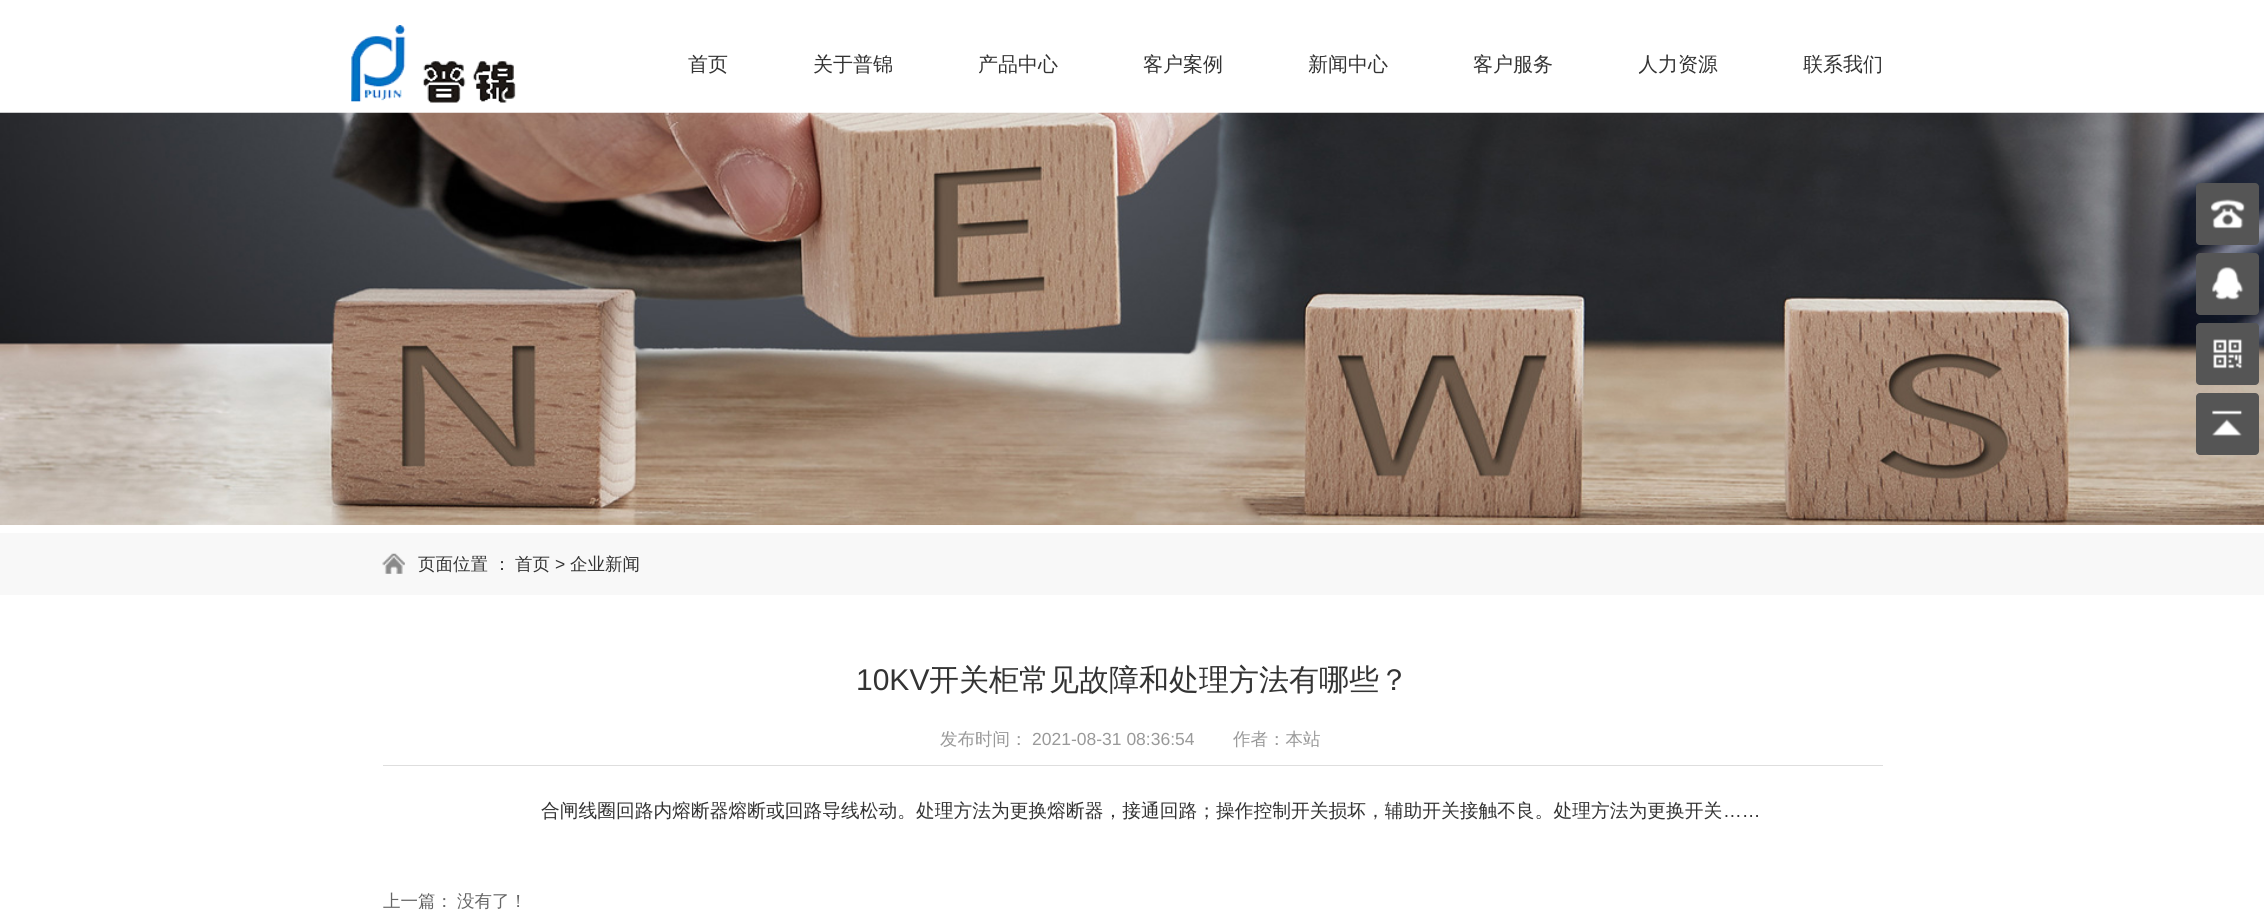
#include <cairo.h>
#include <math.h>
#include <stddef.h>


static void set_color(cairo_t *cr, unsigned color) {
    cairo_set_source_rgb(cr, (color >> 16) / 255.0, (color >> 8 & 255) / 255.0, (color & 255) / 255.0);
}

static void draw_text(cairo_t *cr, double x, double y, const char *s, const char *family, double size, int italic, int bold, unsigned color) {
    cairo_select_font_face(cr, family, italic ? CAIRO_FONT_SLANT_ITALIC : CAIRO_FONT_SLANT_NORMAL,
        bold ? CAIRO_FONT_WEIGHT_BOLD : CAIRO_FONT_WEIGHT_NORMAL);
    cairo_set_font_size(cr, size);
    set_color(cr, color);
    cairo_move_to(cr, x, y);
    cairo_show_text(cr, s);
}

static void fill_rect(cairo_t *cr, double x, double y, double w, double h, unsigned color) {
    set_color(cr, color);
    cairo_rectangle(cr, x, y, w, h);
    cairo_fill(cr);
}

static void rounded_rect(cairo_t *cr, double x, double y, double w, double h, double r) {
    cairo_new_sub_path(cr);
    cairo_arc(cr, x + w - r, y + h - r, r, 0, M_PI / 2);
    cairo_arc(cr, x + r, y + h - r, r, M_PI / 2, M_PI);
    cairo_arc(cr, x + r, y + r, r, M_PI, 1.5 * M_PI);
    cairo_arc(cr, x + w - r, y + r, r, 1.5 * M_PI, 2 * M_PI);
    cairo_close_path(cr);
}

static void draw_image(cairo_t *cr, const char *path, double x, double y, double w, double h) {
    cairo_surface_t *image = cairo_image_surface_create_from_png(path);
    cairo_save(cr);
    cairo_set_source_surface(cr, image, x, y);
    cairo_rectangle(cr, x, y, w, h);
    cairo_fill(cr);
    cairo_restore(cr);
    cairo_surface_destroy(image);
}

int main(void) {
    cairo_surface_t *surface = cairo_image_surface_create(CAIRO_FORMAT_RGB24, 2264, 914);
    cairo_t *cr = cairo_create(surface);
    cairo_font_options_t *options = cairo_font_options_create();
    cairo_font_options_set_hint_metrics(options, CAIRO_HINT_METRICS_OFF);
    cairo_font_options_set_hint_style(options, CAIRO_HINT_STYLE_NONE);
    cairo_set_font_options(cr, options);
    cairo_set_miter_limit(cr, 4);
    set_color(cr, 0xFFFFFF);
    cairo_paint(cr);
    draw_image(cr, "assets/img1.png", 351, 25, 165, 78);
    draw_text(cr, 688, 71, "首页", "WenQuanYi Zen Hei Medium", 20, 0, 0, 0x333333);
    draw_text(cr, 813, 71, "关于普锦", "WenQuanYi Zen Hei Medium", 20, 0, 0, 0x333333);
    cairo_save(cr);
    rounded_rect(cr, 978, 38, 80, 55, 27.5);
    cairo_clip(cr);
    draw_text(cr, 978, 71, "产品中心", "WenQuanYi Zen Hei Medium", 20, 0, 0, 0x333333);
    cairo_restore(cr);
    draw_text(cr, 1143, 71, "客户案例", "WenQuanYi Zen Hei Medium", 20, 0, 0, 0x333333);
    cairo_save(cr);
    rounded_rect(cr, 1308, 38, 80, 55, 27.5);
    cairo_clip(cr);
    draw_text(cr, 1308, 71, "新闻中心", "WenQuanYi Zen Hei Medium", 20, 0, 0, 0x333333);
    cairo_restore(cr);
    draw_text(cr, 1473, 71, "客户服务", "WenQuanYi Zen Hei Medium", 20, 0, 0, 0x333333);
    cairo_save(cr);
    rounded_rect(cr, 1638, 38, 80, 55, 27.5);
    cairo_clip(cr);
    draw_text(cr, 1638, 71, "人力资源", "WenQuanYi Zen Hei Medium", 20, 0, 0, 0x333333);
    cairo_restore(cr);
    cairo_save(cr);
    rounded_rect(cr, 1803, 38, 80, 55, 27.5);
    cairo_clip(cr);
    draw_text(cr, 1803, 71, "联系我们", "WenQuanYi Zen Hei Medium", 20, 0, 0, 0x333333);
    cairo_restore(cr);
    draw_image(cr, "assets/img2.png", 0, 112, 2264, 413);
    set_color(cr, 0x555555);
    rounded_rect(cr, 2196, 183, 63, 62, 4);
    cairo_fill(cr);
    draw_image(cr, "assets/img3.png", 2210, 199, 35, 30);
    rounded_rect(cr, 2196, 253, 63, 62, 4);
    cairo_fill(cr);
    draw_image(cr, "assets/img4.png", 2212, 267, 32, 33);
    rounded_rect(cr, 2196, 323, 63, 62, 4);
    cairo_fill(cr);
    draw_image(cr, "assets/img5.png", 2213, 339, 30, 30);
    rounded_rect(cr, 2196, 393, 63, 62, 4);
    cairo_fill(cr);
    draw_image(cr, "assets/img6.png", 2212, 410, 31, 26);
    fill_rect(cr, 0, 533, 2264, 62, 0xF8F8F8);
    draw_image(cr, "assets/img7.png", 382, 553, 23, 21);
    draw_text(cr, 418, 570, "页面位置 ：", "WenQuanYi Zen Hei Medium", 17.5, 0, 0, 0x333333);
    draw_text(cr, 515, 570, "首页", "WenQuanYi Zen Hei Medium", 17.5, 0, 0, 0x333333);
    draw_text(cr, 555, 570, ">", "Liberation Sans", 17.5, 0, 0, 0x333333);
    draw_text(cr, 570, 570, "企业新闻", "WenQuanYi Zen Hei Medium", 17.5, 0, 0, 0x333333);
    fill_rect(cr, 383, 765, 1500, 1, 0xDEDEDE);
    draw_text(cr, 856, 690, "10KV", "Liberation Sans", 30, 0, 0, 0x333333);
    draw_text(cr, 929, 690, "开关柜常见故障和处理方法有哪些？", "WenQuanYi Zen Hei Medium", 30, 0, 0, 0x333333);
    draw_text(cr, 940, 745, "发布时间：", "WenQuanYi Zen Hei Medium", 17.5, 0, 0, 0x999999);
    draw_text(cr, 1032, 745, "2021-08-31 08:36:54", "Liberation Sans", 17.5, 0, 0, 0x999999);
    draw_text(cr, 1233, 745, "作者：本站", "WenQuanYi Zen Hei Medium", 17.5, 0, 0, 0x999999);
    draw_text(cr, 541, 817, "合闸线圈回路内熔断器熔断或回路导线松动。处理方法为更换熔断器，接通回路；操作控制开关损坏，辅助开关接触不良。处理方法为更换开关", "WenQuanYi Zen Hei Medium", 18.75, 0, 0, 0x333333);
    draw_text(cr, 1723, 817, "……", "Liberation Sans", 18.75, 0, 0, 0x333333);
    draw_text(cr, 383, 907, "上一篇：", "WenQuanYi Zen Hei Medium", 17.5, 0, 0, 0x666666);
    draw_text(cr, 457, 907, "没有了！", "WenQuanYi Zen Hei Medium", 17.5, 0, 0, 0x666666);
    cairo_surface_write_to_png(surface, "output.png");
    cairo_font_options_destroy(options);
    cairo_destroy(cr);
    cairo_surface_destroy(surface);
    return 0;
}
